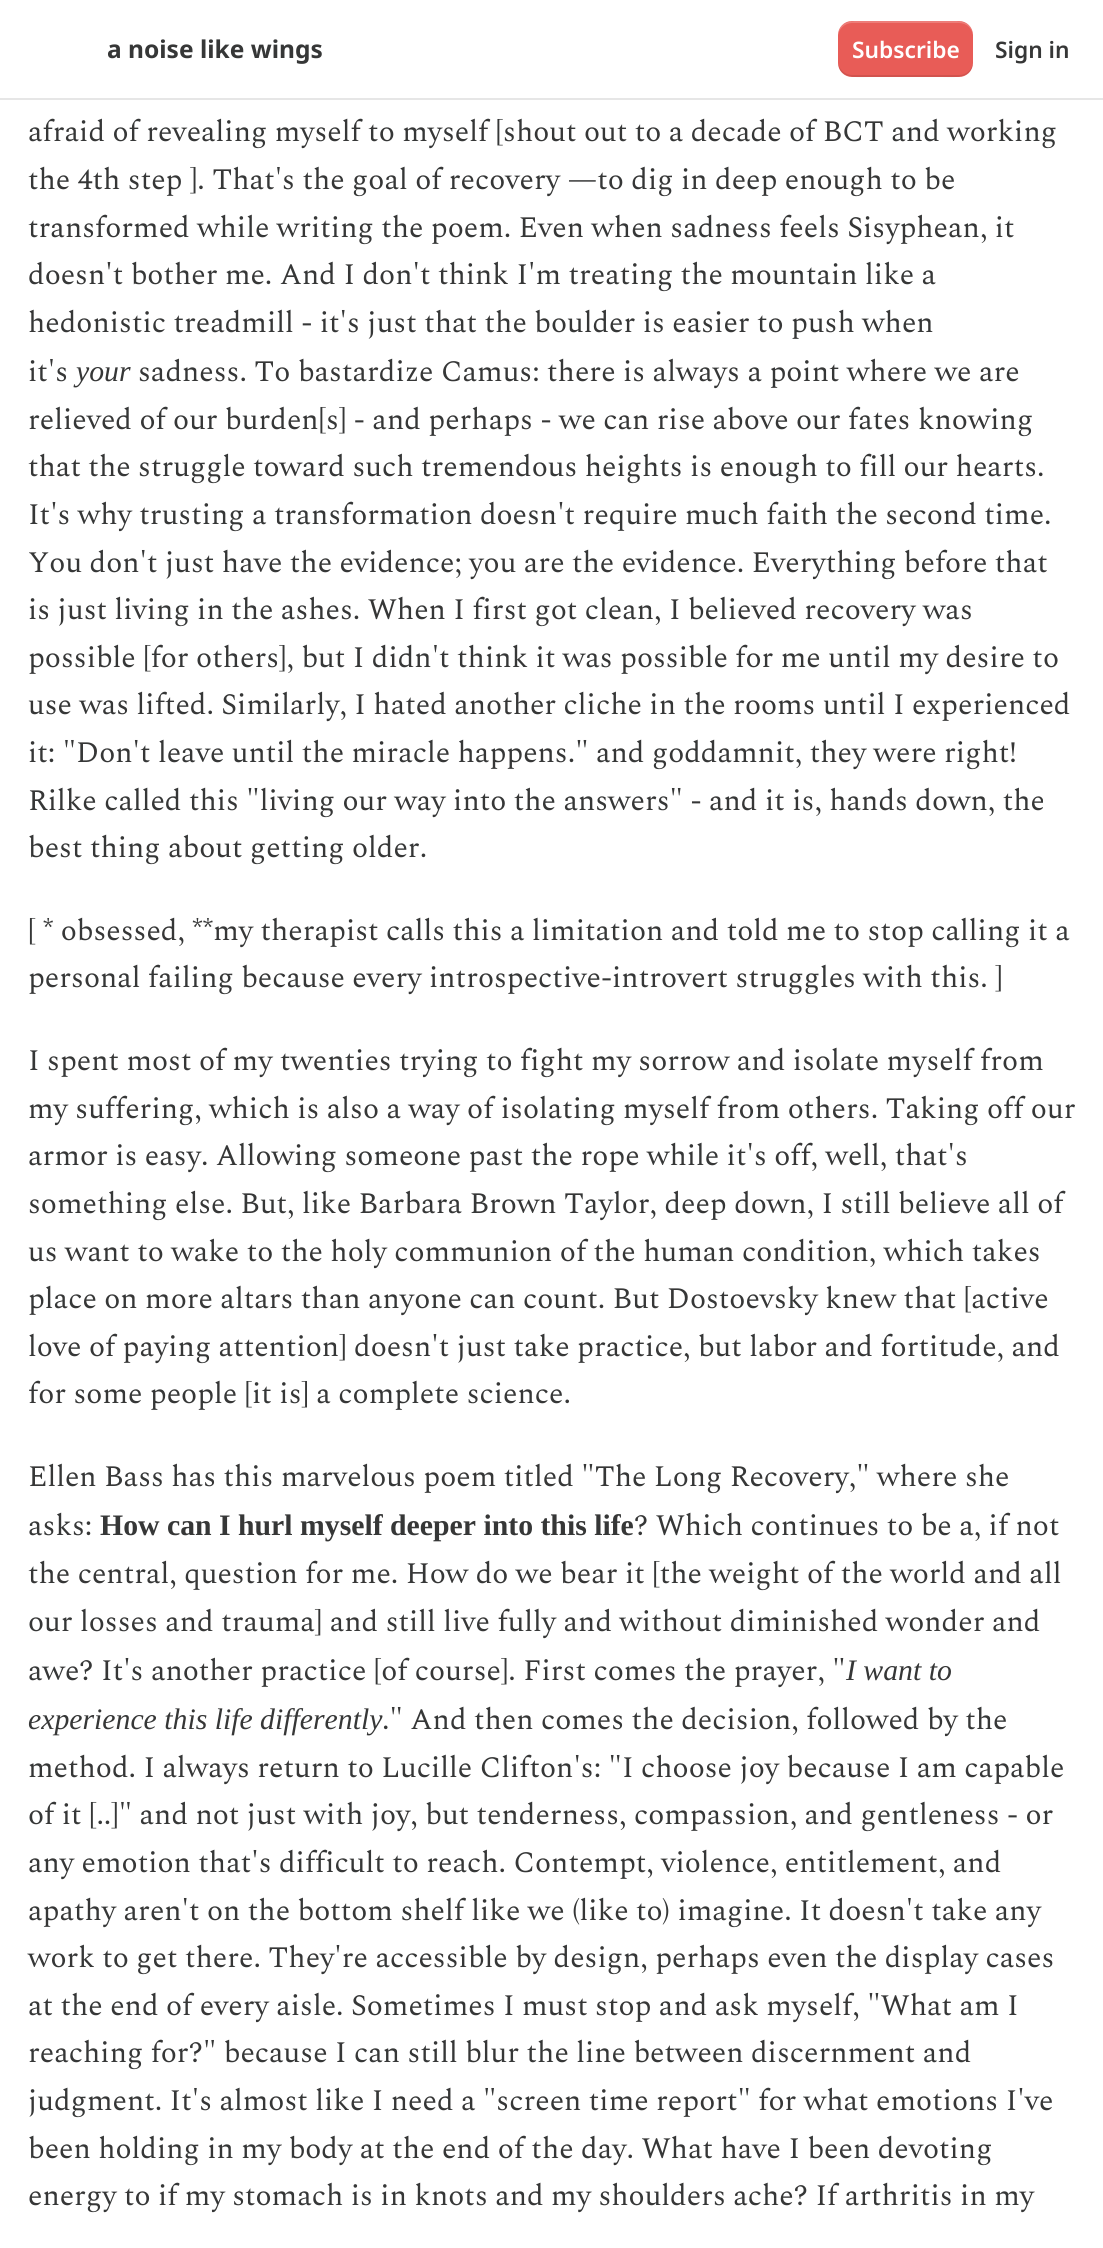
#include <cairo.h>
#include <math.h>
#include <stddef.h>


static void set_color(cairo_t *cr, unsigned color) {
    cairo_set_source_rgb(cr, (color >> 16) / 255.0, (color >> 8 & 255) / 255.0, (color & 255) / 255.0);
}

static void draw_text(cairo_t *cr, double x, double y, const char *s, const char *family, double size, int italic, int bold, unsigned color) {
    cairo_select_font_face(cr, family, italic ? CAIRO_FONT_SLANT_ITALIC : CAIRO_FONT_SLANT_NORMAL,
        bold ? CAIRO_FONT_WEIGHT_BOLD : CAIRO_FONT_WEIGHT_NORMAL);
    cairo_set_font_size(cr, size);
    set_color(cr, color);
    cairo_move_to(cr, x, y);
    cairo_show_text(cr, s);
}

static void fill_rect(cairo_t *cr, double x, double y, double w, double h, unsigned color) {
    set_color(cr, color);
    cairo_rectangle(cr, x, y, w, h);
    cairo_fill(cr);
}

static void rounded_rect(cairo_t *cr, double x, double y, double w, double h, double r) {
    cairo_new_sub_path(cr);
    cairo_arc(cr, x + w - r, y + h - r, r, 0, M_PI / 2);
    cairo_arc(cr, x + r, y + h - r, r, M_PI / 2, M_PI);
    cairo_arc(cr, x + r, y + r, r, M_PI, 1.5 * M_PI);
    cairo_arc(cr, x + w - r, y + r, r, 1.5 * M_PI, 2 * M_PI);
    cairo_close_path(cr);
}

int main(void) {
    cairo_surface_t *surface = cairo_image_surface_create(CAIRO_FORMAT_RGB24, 1103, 2248);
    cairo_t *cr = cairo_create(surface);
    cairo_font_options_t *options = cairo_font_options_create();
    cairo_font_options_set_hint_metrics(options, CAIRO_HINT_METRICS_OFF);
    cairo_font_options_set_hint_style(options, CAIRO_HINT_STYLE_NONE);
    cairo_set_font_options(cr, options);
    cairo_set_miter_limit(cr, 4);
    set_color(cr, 0xFFFFFF);
    cairo_paint(cr);
    fill_rect(cr, 0, 98, 1103, 2, 0xE6E6E6);
    draw_text(cr, 107, 58, "a noise like wings", "Noto Sans", 24.5, 0, 1, 0x363737);
    set_color(cr, 0xE85C57);
    rounded_rect(cr, 838, 21, 135, 56, 14);
    cairo_fill(cr);
    cairo_set_source_rgba(cr, 0, 0, 0, 0.1);
    cairo_new_path(cr);
    cairo_move_to(cr, 838, 61);
    cairo_curve_to(cr, 838, 80, 856, 77, 870, 77);
    cairo_line_to(cr, 941, 77);
    cairo_curve_to(cr, 955, 77, 973, 80, 973, 61);
    cairo_curve_to(cr, 973, 69, 967, 75, 959, 75);
    cairo_line_to(cr, 852, 75);
    cairo_curve_to(cr, 845, 75, 838, 69, 838, 61);
    cairo_close_path(cr);
    cairo_fill(cr);
    cairo_set_source_rgba(cr, 1, 1, 1, 0.2);
    cairo_new_path(cr);
    cairo_move_to(cr, 852, 23);
    cairo_line_to(cr, 959, 23);
    cairo_curve_to(cr, 967, 23, 973, 29, 973, 37);
    cairo_curve_to(cr, 973, 18, 955, 21, 941, 21);
    cairo_line_to(cr, 870, 21);
    cairo_curve_to(cr, 856, 21, 838, 18, 838, 37);
    cairo_curve_to(cr, 838, 29, 845, 23, 852, 23);
    cairo_close_path(cr);
    cairo_fill(cr);
    draw_text(cr, 852, 58, "Subscribe", "Noto Sans SemiBold", 22.75, 0, 0, 0xFFFFFF);
    draw_text(cr, 995, 58, "Sign in", "Noto Sans SemiBold", 22.75, 0, 0, 0x363737);
    draw_text(cr, 28, 141, "afraid of revealing myself to myself [shout out to a decade of BCT and working", "Spectral", 29.75, 0, 0, 0x363737);
    draw_text(cr, 28, 189, "the 4th step ]. That's the goal of recovery —to dig in deep enough to be", "Spectral", 29.75, 0, 0, 0x363737);
    draw_text(cr, 28, 237, "transformed while writing the poem. Even when sadness feels Sisyphean, it", "Spectral", 29.75, 0, 0, 0x363737);
    draw_text(cr, 28, 284, "doesn't bother me. And I don't think I'm treating the mountain like a", "Spectral", 29.75, 0, 0, 0x363737);
    draw_text(cr, 28, 332, "hedonistic treadmill - it's just that the boulder is easier to push when", "Spectral", 29.75, 0, 0, 0x363737);
    draw_text(cr, 28, 381, "it's", "Spectral", 29.75, 0, 0, 0x363737);
    draw_text(cr, 76, 381, "your", "Liberation Serif", 29.75, 1, 0, 0x363737);
    draw_text(cr, 138, 381, "sadness. To bastardize Camus: there is always a point where we are", "Spectral", 29.75, 0, 0, 0x363737);
    draw_text(cr, 28, 429, "relieved of our burden[s] - and perhaps - we can rise above our fates knowing", "Spectral", 29.75, 0, 0, 0x363737);
    draw_text(cr, 28, 476, "that the struggle toward such tremendous heights is enough to fill our hearts.", "Spectral", 29.75, 0, 0, 0x363737);
    draw_text(cr, 28, 524, "It's why trusting a transformation doesn't require much faith the second time.", "Spectral", 29.75, 0, 0, 0x363737);
    draw_text(cr, 28, 572, "You don't just have the evidence; you are the evidence. Everything before that", "Spectral", 29.75, 0, 0, 0x363737);
    draw_text(cr, 28, 619, "is just living in the ashes. When I first got clean, I believed recovery was", "Spectral", 29.75, 0, 0, 0x363737);
    draw_text(cr, 28, 667, "possible [for others], but I didn't think it was possible for me until my desire to", "Spectral", 29.75, 0, 0, 0x363737);
    draw_text(cr, 28, 714, "use was lifted. Similarly, I hated another cliche in the rooms until I experienced", "Spectral", 29.75, 0, 0, 0x363737);
    draw_text(cr, 28, 762, "it: \"Don't leave until the miracle happens.\" and goddamnit, they were right!", "Spectral", 29.75, 0, 0, 0x363737);
    draw_text(cr, 28, 810, "Rilke called this \"living our way into the answers\" - and it is, hands down, the", "Spectral", 29.75, 0, 0, 0x363737);
    draw_text(cr, 28, 857, "best thing about getting older.", "Spectral", 29.75, 0, 0, 0x363737);
    draw_text(cr, 28, 940, "[ * obsessed, **my therapist calls this a limitation and told me to stop calling it a", "Spectral", 29.75, 0, 0, 0x363737);
    draw_text(cr, 28, 987, "personal failing because every introspective-introvert struggles with this. ]", "Spectral", 29.75, 0, 0, 0x363737);
    draw_text(cr, 28, 1070, "I spent most of my twenties trying to fight my sorrow and isolate myself from", "Spectral", 29.75, 0, 0, 0x363737);
    draw_text(cr, 28, 1118, "my suffering, which is also a way of isolating myself from others. Taking off our", "Spectral", 29.75, 0, 0, 0x363737);
    draw_text(cr, 28, 1165, "armor is easy. Allowing someone past the rope while it's off, well, that's", "Spectral", 29.75, 0, 0, 0x363737);
    draw_text(cr, 28, 1213, "something else. But, like Barbara Brown Taylor, deep down, I still believe all of", "Spectral", 29.75, 0, 0, 0x363737);
    draw_text(cr, 28, 1261, "us want to wake to the holy communion of the human condition, which takes", "Spectral", 29.75, 0, 0, 0x363737);
    draw_text(cr, 28, 1308, "place on more altars than anyone can count. But Dostoevsky knew that [active", "Spectral", 29.75, 0, 0, 0x363737);
    draw_text(cr, 28, 1356, "love of paying attention] doesn't just take practice, but labor and fortitude, and", "Spectral", 29.75, 0, 0, 0x363737);
    draw_text(cr, 28, 1403, "for some people [it is] a complete science.", "Spectral", 29.75, 0, 0, 0x363737);
    draw_text(cr, 28, 1486, "Ellen Bass has this marvelous poem titled \"The Long Recovery,\" where she", "Spectral", 29.75, 0, 0, 0x363737);
    draw_text(cr, 28, 1535, "asks:", "Spectral", 29.75, 0, 0, 0x363737);
    draw_text(cr, 100, 1535, "How can I hurl myself deeper into this life", "Liberation Serif", 29.75, 0, 1, 0x363737);
    draw_text(cr, 634, 1535, "? Which continues to be a, if not", "Spectral", 29.75, 0, 0, 0x363737);
    draw_text(cr, 28, 1583, "the central, question for me. How do we bear it [the weight of the world and all", "Spectral", 29.75, 0, 0, 0x363737);
    draw_text(cr, 28, 1631, "our losses and trauma] and still live fully and without diminished wonder and", "Spectral", 29.75, 0, 0, 0x363737);
    draw_text(cr, 28, 1680, "awe? It's another practice [of course]. First comes the prayer, \"", "Spectral", 29.75, 0, 0, 0x363737);
    draw_text(cr, 846, 1680, "I want to", "Liberation Serif", 29.75, 1, 0, 0x363737);
    draw_text(cr, 28, 1729, "experience this life differently", "Liberation Serif", 29.75, 1, 0, 0x363737);
    draw_text(cr, 382, 1729, ".\" And then comes the decision, followed by the", "Spectral", 29.75, 0, 0, 0x363737);
    draw_text(cr, 28, 1777, "method. I always return to Lucille Clifton's: \"I choose joy because I am capable", "Spectral", 29.75, 0, 0, 0x363737);
    draw_text(cr, 28, 1824, "of it [..]\" and not just with joy, but tenderness, compassion, and gentleness - or", "Spectral", 29.75, 0, 0, 0x363737);
    draw_text(cr, 28, 1872, "any emotion that's difficult to reach. Contempt, violence, entitlement, and", "Spectral", 29.75, 0, 0, 0x363737);
    draw_text(cr, 28, 1920, "apathy aren't on the bottom shelf like we (like to) imagine. It doesn't take any", "Spectral", 29.75, 0, 0, 0x363737);
    draw_text(cr, 28, 1967, "work to get there. They're accessible by design, perhaps even the display cases", "Spectral", 29.75, 0, 0, 0x363737);
    draw_text(cr, 28, 2015, "at the end of every aisle. Sometimes I must stop and ask myself, \"What am I", "Spectral", 29.75, 0, 0, 0x363737);
    draw_text(cr, 28, 2062, "reaching for?\" because I can still blur the line between discernment and", "Spectral", 29.75, 0, 0, 0x363737);
    draw_text(cr, 28, 2110, "judgment. It's almost like I need a \"screen time report\" for what emotions I've", "Spectral", 29.75, 0, 0, 0x363737);
    draw_text(cr, 28, 2158, "been holding in my body at the end of the day. What have I been devoting", "Spectral", 29.75, 0, 0, 0x363737);
    draw_text(cr, 28, 2205, "energy to if my stomach is in knots and my shoulders ache? If arthritis in my", "Spectral", 29.75, 0, 0, 0x363737);
    cairo_surface_write_to_png(surface, "output.png");
    cairo_font_options_destroy(options);
    cairo_destroy(cr);
    cairo_surface_destroy(surface);
    return 0;
}
